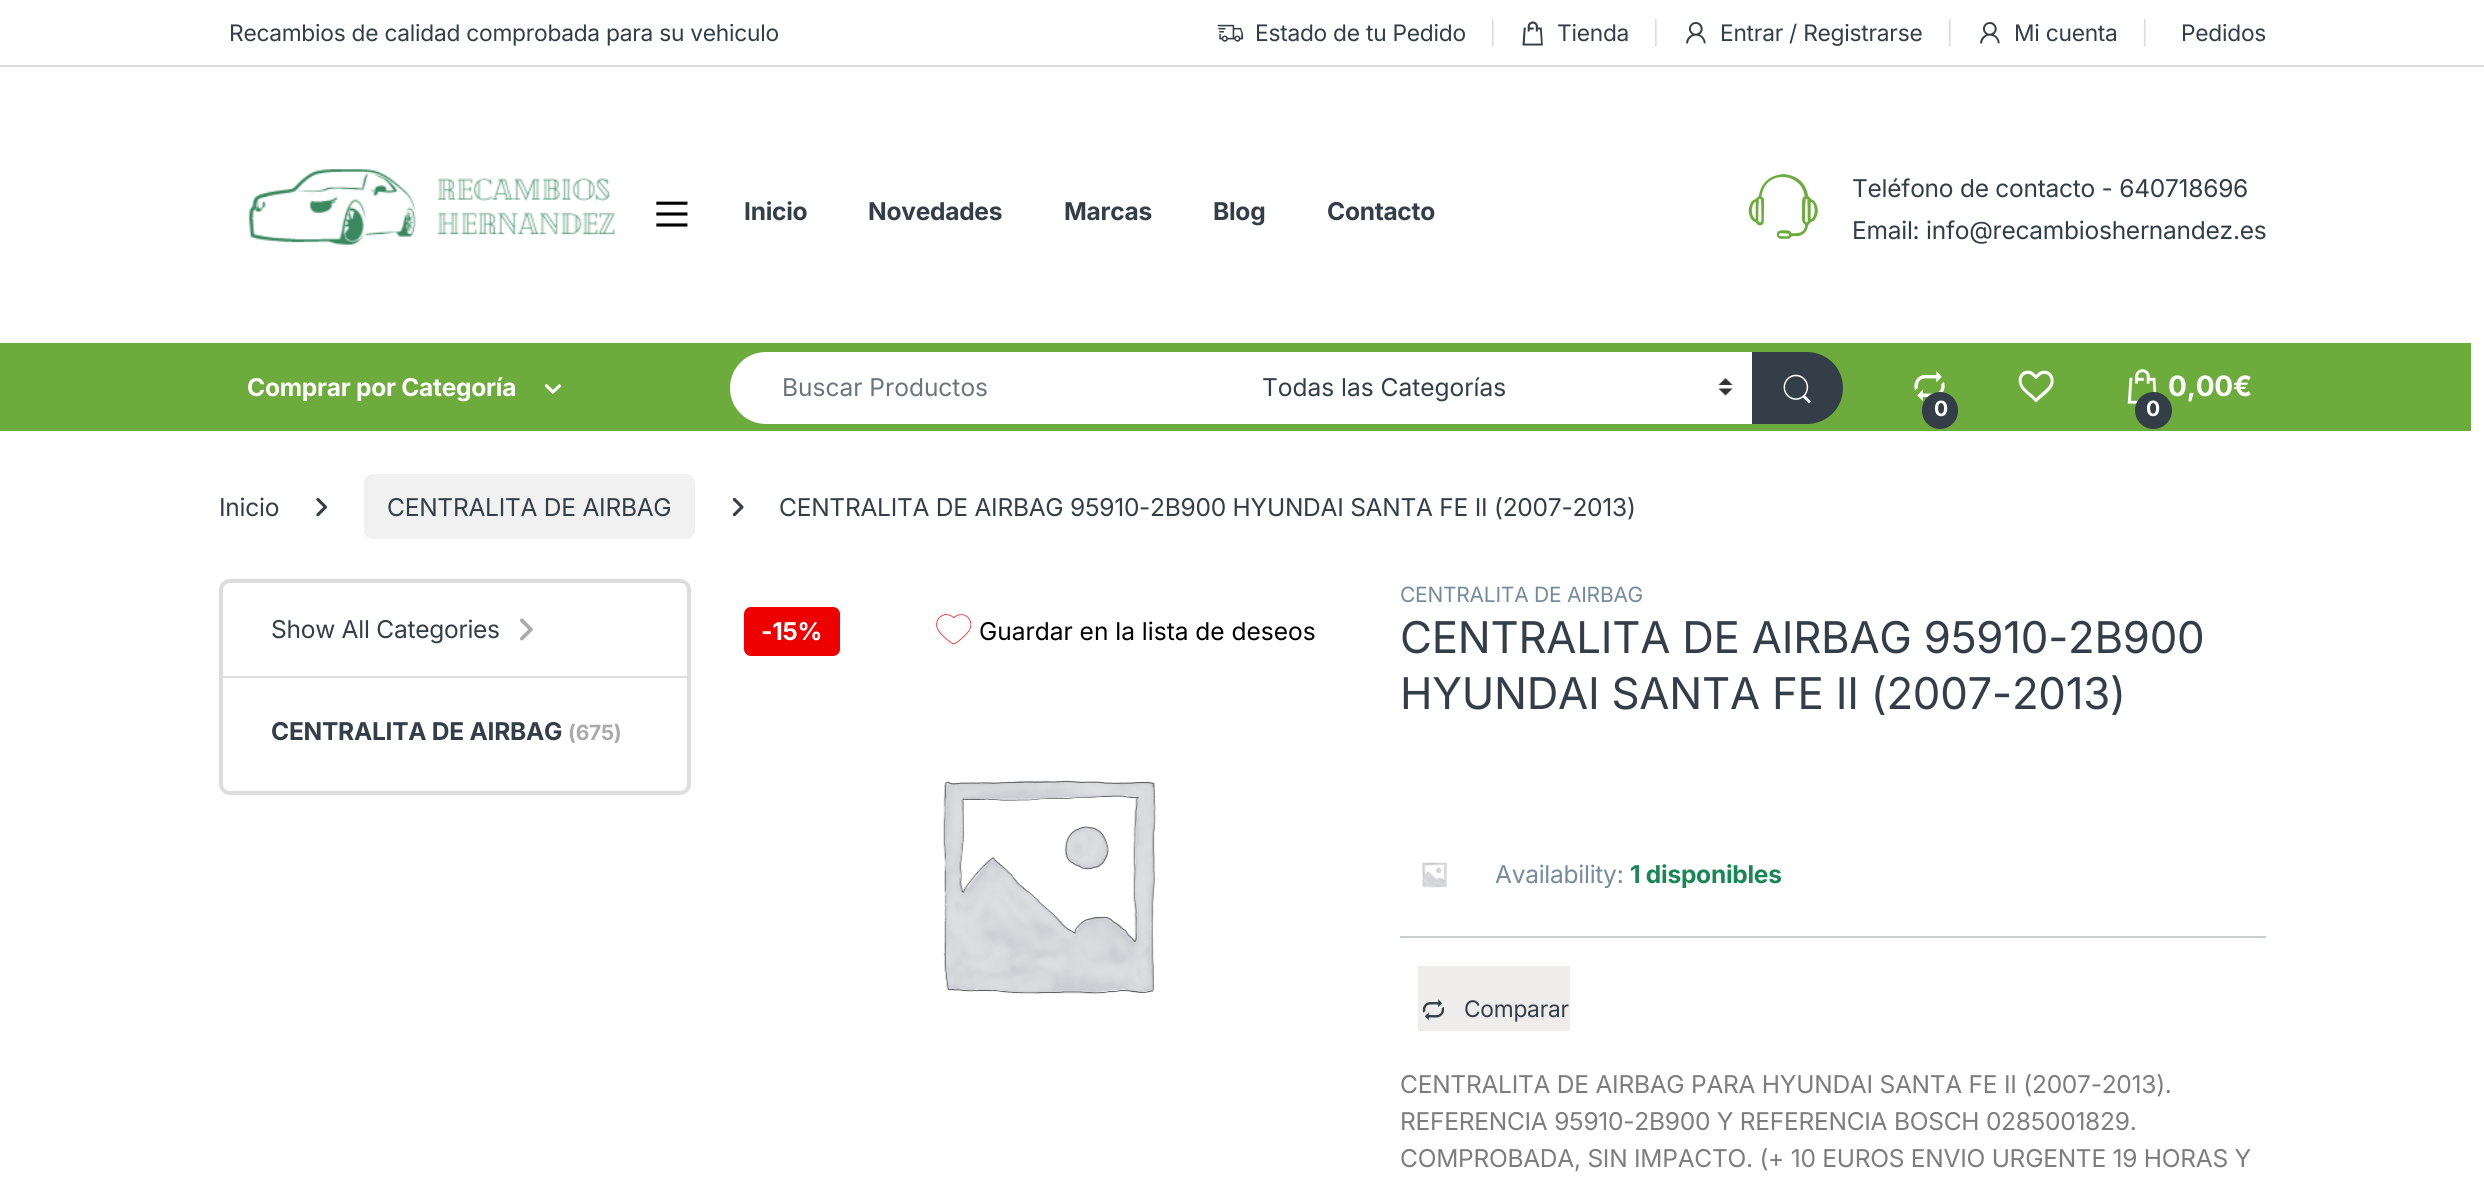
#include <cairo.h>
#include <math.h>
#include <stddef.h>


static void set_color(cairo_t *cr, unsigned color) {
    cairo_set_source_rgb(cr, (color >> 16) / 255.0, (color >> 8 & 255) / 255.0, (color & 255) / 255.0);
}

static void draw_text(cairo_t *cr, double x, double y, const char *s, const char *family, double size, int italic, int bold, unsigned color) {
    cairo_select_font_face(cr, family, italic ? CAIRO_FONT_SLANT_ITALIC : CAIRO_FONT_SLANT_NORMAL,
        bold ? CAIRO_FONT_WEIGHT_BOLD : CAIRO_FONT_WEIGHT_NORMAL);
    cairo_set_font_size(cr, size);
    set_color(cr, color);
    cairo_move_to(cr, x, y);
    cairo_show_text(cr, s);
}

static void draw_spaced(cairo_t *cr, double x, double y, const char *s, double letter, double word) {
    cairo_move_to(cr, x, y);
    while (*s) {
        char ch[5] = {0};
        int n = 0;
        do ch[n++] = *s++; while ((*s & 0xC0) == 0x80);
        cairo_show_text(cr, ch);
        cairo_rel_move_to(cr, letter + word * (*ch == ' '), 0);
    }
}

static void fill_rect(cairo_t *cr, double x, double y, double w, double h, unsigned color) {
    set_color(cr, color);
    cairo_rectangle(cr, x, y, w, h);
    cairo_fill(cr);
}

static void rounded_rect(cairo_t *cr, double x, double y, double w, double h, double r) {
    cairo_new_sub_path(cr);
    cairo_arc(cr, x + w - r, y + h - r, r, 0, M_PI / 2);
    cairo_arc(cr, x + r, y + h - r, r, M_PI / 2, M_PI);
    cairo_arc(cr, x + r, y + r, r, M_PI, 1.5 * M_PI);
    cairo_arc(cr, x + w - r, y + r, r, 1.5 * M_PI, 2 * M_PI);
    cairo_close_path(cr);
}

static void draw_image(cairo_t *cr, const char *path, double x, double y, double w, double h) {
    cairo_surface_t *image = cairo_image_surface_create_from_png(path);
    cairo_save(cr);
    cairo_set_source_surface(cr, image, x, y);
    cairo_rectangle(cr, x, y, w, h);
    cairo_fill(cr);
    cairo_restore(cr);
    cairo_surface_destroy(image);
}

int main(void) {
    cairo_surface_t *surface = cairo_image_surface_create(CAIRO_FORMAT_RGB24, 2484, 1184);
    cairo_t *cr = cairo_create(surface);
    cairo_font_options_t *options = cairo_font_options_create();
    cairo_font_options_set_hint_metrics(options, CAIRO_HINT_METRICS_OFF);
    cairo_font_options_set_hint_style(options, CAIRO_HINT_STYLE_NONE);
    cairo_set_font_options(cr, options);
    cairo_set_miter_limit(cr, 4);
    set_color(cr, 0xFFFFFF);
    cairo_paint(cr);
    fill_rect(cr, 0, 65, 2484, 2, 0xDDDDDD);
    cairo_select_font_face(cr, "Inter", CAIRO_FONT_SLANT_NORMAL, CAIRO_FONT_WEIGHT_NORMAL);
    cairo_set_font_size(cr, 22.75);
    set_color(cr, 0x333E48);
    draw_spaced(cr, 229, 41, "Recambios de calidad comprobada para su vehiculo", -0.25, 0);
    draw_image(cr, "assets/img1.png", 1217, 24, 26, 18);
    draw_spaced(cr, 1255, 41, "Estado de tu Pedido", -0.25, 0);
    set_color(cr, 0xDDDDDD);
    draw_spaced(cr, 1489, 41, "|", -0.25, 0);
    draw_image(cr, "assets/img2.png", 1522, 21, 21, 25);
    set_color(cr, 0x333E48);
    draw_spaced(cr, 1557, 41, "Tienda", -0.25, 0);
    set_color(cr, 0xDDDDDD);
    draw_spaced(cr, 1652, 41, "|", -0.25, 0);
    draw_image(cr, "assets/img3.png", 1686, 22, 20, 22);
    set_color(cr, 0x333E48);
    draw_spaced(cr, 1720, 41, "Entrar / Registrarse", -0.25, 0);
    set_color(cr, 0xDDDDDD);
    draw_spaced(cr, 1946, 41, "|", -0.25, 0);
    draw_image(cr, "assets/img3.png", 1980, 22, 20, 22);
    set_color(cr, 0x333E48);
    draw_spaced(cr, 2014, 41, "Mi cuenta", -0.25, 0);
    set_color(cr, 0xDDDDDD);
    draw_spaced(cr, 2141, 41, "|", -0.25, 0);
    set_color(cr, 0x333E48);
    draw_spaced(cr, 2181, 41, "Pedidos", -0.25, 0);
    draw_image(cr, "assets/img4.png", 248, 169, 367, 76);
    draw_image(cr, "assets/img5.png", 656, 201, 32, 26);
    cairo_select_font_face(cr, "Inter", CAIRO_FONT_SLANT_NORMAL, CAIRO_FONT_WEIGHT_BOLD);
    cairo_set_font_size(cr, 24.5);
    draw_spaced(cr, 744, 220, "Inicio", -0.25, 0);
    draw_spaced(cr, 868, 220, "Novedades", -0.25, 0);
    draw_spaced(cr, 1064, 220, "Marcas", -0.25, 0);
    draw_spaced(cr, 1213, 220, "Blog", -0.25, 0);
    draw_spaced(cr, 1327, 220, "Contacto", -0.25, 0);
    draw_image(cr, "assets/img6.png", 1748, 174, 70, 65);
    cairo_select_font_face(cr, "Inter", CAIRO_FONT_SLANT_NORMAL, CAIRO_FONT_WEIGHT_NORMAL);
    draw_spaced(cr, 1852, 197, "Teléfono de contacto - 640718696", -0.25, 0);
    draw_spaced(cr, 1852, 239, "Email: info@recambioshernandez.es", -0.25, 0);
    fill_rect(cr, 0, 343, 2471, 88, 0x6DAB3C);
    cairo_select_font_face(cr, "Inter", CAIRO_FONT_SLANT_NORMAL, CAIRO_FONT_WEIGHT_BOLD);
    set_color(cr, 0xFFFFFF);
    draw_spaced(cr, 247, 396, "Comprar por Categoría", -0.25, 0);
    draw_image(cr, "assets/img7.png", 544, 384, 18, 10);
    cairo_new_path(cr);
    cairo_move_to(cr, 766, 352);
    cairo_line_to(cr, 1243, 352);
    cairo_line_to(cr, 1243, 424);
    cairo_line_to(cr, 766, 424);
    cairo_curve_to(cr, 746, 424, 730, 408, 730, 388);
    cairo_curve_to(cr, 730, 368, 746, 352, 766, 352);
    cairo_close_path(cr);
    cairo_fill(cr);
    draw_text(cr, 782, 396, "Buscar Productos", "Inter", 24.5, 0, 0, 0x6C757D);
    fill_rect(cr, 1243, 352, 509, 72, 0xFFFFFF);
    draw_image(cr, "assets/img8.png", 1718, 378, 15, 18);
    draw_text(cr, 1262, 396, "Todas las Categorías", "Inter", 24.5, 0, 0, 0x333E48);
    cairo_new_path(cr);
    cairo_move_to(cr, 1752, 352);
    cairo_line_to(cr, 1807, 352);
    cairo_curve_to(cr, 1827, 352, 1843, 368, 1843, 388);
    cairo_curve_to(cr, 1843, 408, 1827, 424, 1807, 424);
    cairo_line_to(cr, 1752, 424);
    cairo_close_path(cr);
    cairo_fill(cr);
    draw_image(cr, "assets/img9.png", 1783, 374, 28, 30);
    draw_image(cr, "assets/img10.png", 1914, 371, 31, 30);
    rounded_rect(cr, 1922, 392, 36, 37, 18);
    cairo_fill(cr);
    cairo_select_font_face(cr, "Inter", CAIRO_FONT_SLANT_NORMAL, CAIRO_FONT_WEIGHT_BOLD);
    cairo_set_font_size(cr, 21);
    set_color(cr, 0xFFFFFF);
    draw_spaced(cr, 1934, 416, "0", -0.25, 0);
    draw_image(cr, "assets/img11.png", 2018, 370, 36, 33);
    draw_image(cr, "assets/img12.png", 2127, 369, 30, 35);
    cairo_set_font_size(cr, 28);
    draw_spaced(cr, 2168, 396, "0,00€", -0.25, 0);
    set_color(cr, 0x333E48);
    cairo_new_path(cr);
    cairo_arc(cr, 2153.5, 410.5, 18.5, 0, 2 * M_PI);
    cairo_fill(cr);
    cairo_set_font_size(cr, 21);
    set_color(cr, 0xFFFFFF);
    draw_spaced(cr, 2146, 416, "0", -0.25, 0);
    cairo_select_font_face(cr, "Inter", CAIRO_FONT_SLANT_NORMAL, CAIRO_FONT_WEIGHT_NORMAL);
    cairo_set_font_size(cr, 24.5);
    set_color(cr, 0x333E48);
    draw_spaced(cr, 219, 516, "Inicio", -0.25, 0);
    draw_image(cr, "assets/img13.png", 316, 497, 11, 20);
    set_color(cr, 0xF1F1F1);
    rounded_rect(cr, 364, 474, 331, 65, 9);
    cairo_fill(cr);
    set_color(cr, 0x333E48);
    draw_spaced(cr, 387, 516, "CENTRALITA DE AIRBAG", -0.25, 0);
    draw_image(cr, "assets/img14.png", 732, 497, 12, 20);
    draw_spaced(cr, 779, 516, "CENTRALITA DE AIRBAG 95910-2B900 HYUNDAI SANTA FE II (2007-2013)", -0.25, 0);
    rounded_rect(cr, 221, 581, 468, 212, 9);
    set_color(cr, 0xDDDDDD);
    cairo_set_line_width(cr, 4);
    cairo_stroke(cr);
    fill_rect(cr, 222, 676, 466, 2, 0xDDDDDD);
    set_color(cr, 0x333E48);
    draw_spaced(cr, 271, 638, "Show All Categories", -0.25, 0);
    draw_image(cr, "assets/img15.png", 520, 618, 13, 23);
    cairo_select_font_face(cr, "Inter", CAIRO_FONT_SLANT_NORMAL, CAIRO_FONT_WEIGHT_BOLD);
    draw_spaced(cr, 271, 740, "CENTRALITA DE AIRBAG", -0.25, 0);
    cairo_set_font_size(cr, 21);
    set_color(cr, 0xAAAAAA);
    draw_spaced(cr, 568, 740, "(675)", -0.25, 0);
    set_color(cr, 0xEE0000);
    rounded_rect(cr, 744, 607, 96, 49, 7);
    cairo_fill(cr);
    cairo_set_font_size(cr, 24.5);
    set_color(cr, 0xFFFFFF);
    draw_spaced(cr, 761, 640, "-15%", -0.25, 0);
    draw_image(cr, "assets/img16.png", 936, 614, 35, 30);
    draw_text(cr, 979, 640, "Guardar en la lista de deseos", "Inter", 24.5, 0, 0, 0x000000);
    draw_image(cr, "assets/img17.png", 943, 780, 213, 214);
    cairo_set_font_size(cr, 21);
    set_color(cr, 0x768B9E);
    draw_spaced(cr, 1400, 602, "CENTRALITA DE AIRBAG", -0.25, 0);
    cairo_set_font_size(cr, 43.75);
    set_color(cr, 0x333E48);
    draw_spaced(cr, 1400, 653, "CENTRALITA DE AIRBAG 95910-2B900", -0.25, 0);
    draw_spaced(cr, 1400, 709, "HYUNDAI SANTA FE II (2007-2013)", -0.25, 0);
    draw_image(cr, "assets/img18.png", 1421, 862, 27, 26);
    cairo_set_font_size(cr, 24.5);
    set_color(cr, 0x768B9E);
    draw_spaced(cr, 1495, 883, "Availability:", -0.25, 0);
    cairo_select_font_face(cr, "Inter", CAIRO_FONT_SLANT_NORMAL, CAIRO_FONT_WEIGHT_BOLD);
    set_color(cr, 0x198754);
    draw_spaced(cr, 1630, 883, "1 disponibles", -0.25, 0);
    fill_rect(cr, 1400, 936, 866, 2, 0xCCCFD1);
    fill_rect(cr, 1418, 966, 152, 65, 0xEFECEC);
    draw_image(cr, "assets/img19.png", 1422, 999, 23, 22);
    cairo_select_font_face(cr, "Inter", CAIRO_FONT_SLANT_NORMAL, CAIRO_FONT_WEIGHT_NORMAL);
    cairo_set_font_size(cr, 22.75);
    set_color(cr, 0x333E48);
    draw_spaced(cr, 1464, 1017, "Comparar", -0.25, 0);
    cairo_set_font_size(cr, 24.5);
    set_color(cr, 0x7D7D7D);
    draw_spaced(cr, 1400, 1093, "CENTRALITA DE AIRBAG PARA HYUNDAI SANTA FE II (2007-2013).", -0.25, 0);
    draw_spaced(cr, 1400, 1130, "REFERENCIA 95910-2B900 Y REFERENCIA BOSCH 0285001829.", -0.25, 0);
    draw_spaced(cr, 1400, 1167, "COMPROBADA, SIN IMPACTO. (+ 10 EUROS ENVIO URGENTE 19 HORAS Y", -0.25, 0);
    cairo_surface_write_to_png(surface, "output.png");
    cairo_font_options_destroy(options);
    cairo_destroy(cr);
    cairo_surface_destroy(surface);
    return 0;
}
